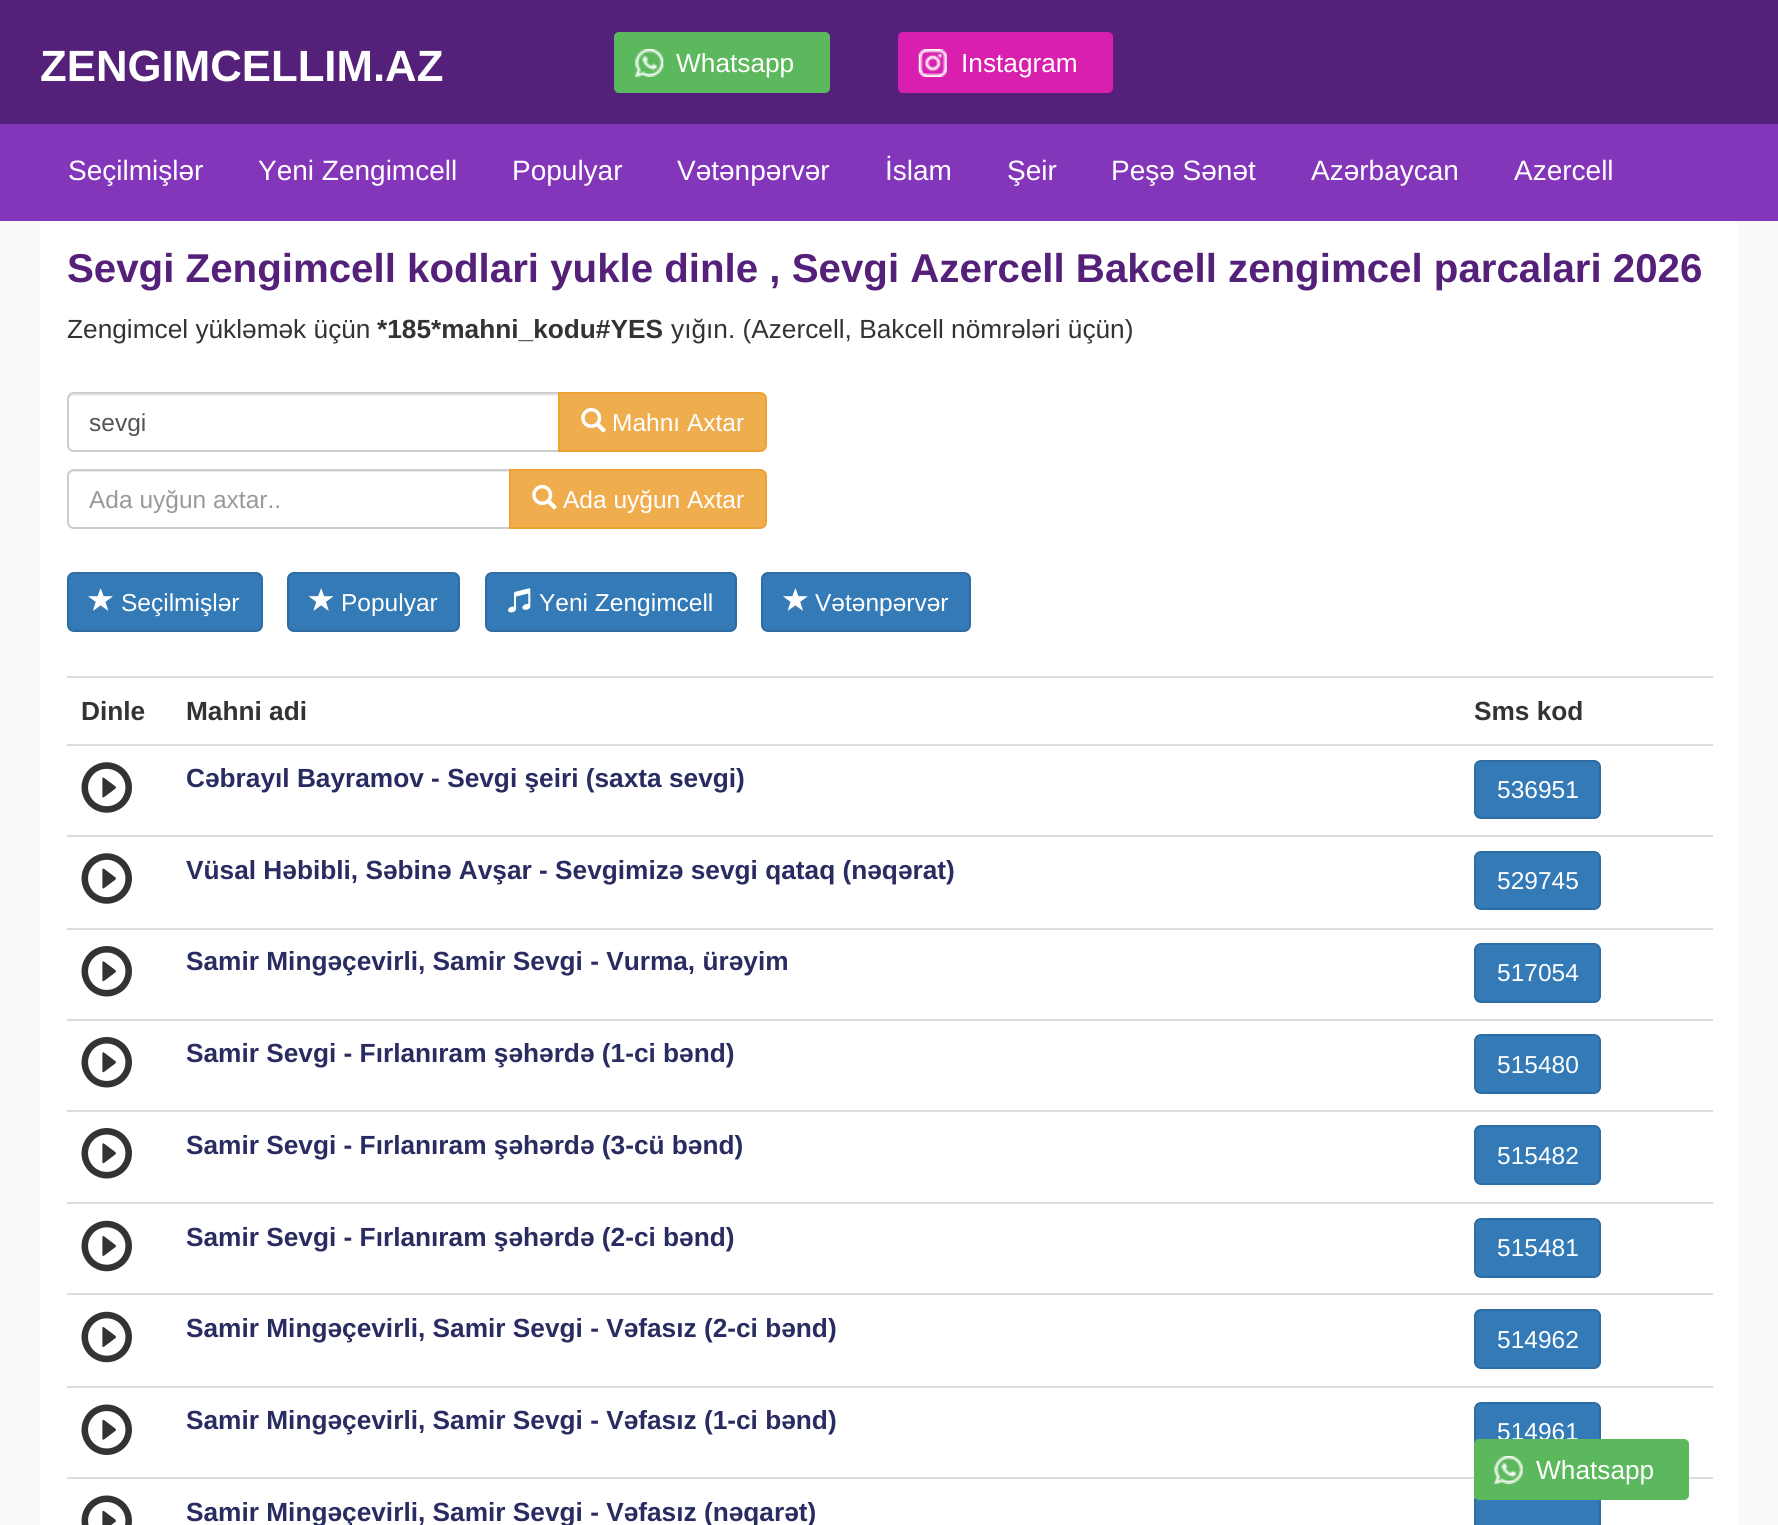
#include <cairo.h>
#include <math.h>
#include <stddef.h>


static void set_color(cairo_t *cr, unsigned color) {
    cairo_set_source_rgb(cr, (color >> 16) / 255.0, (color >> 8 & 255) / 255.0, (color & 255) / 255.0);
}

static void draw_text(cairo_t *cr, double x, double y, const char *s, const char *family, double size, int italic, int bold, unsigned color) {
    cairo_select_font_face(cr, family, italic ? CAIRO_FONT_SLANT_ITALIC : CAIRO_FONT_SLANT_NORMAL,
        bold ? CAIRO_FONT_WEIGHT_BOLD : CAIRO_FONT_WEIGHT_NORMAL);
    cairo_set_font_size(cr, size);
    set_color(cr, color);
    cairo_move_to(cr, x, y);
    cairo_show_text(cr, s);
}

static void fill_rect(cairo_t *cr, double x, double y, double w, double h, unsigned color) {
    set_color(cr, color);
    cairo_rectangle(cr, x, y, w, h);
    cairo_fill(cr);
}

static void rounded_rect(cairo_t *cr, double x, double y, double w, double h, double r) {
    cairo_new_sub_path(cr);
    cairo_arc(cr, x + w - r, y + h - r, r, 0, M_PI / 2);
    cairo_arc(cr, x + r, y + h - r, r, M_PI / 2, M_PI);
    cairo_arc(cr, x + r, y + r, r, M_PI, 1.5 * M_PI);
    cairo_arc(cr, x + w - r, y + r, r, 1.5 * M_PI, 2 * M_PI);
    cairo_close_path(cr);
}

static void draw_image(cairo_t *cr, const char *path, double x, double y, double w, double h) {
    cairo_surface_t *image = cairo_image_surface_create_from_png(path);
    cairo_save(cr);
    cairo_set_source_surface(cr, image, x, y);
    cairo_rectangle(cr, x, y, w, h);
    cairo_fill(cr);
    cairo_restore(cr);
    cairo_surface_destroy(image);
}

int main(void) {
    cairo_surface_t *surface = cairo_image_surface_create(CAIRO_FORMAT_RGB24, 1778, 1525);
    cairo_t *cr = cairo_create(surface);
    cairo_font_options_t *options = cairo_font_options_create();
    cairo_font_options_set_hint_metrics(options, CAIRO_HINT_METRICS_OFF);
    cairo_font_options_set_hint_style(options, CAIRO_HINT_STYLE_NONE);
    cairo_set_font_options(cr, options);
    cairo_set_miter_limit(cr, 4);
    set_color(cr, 0xFAFAFA);
    cairo_paint(cr);
    fill_rect(cr, 0, 0, 1778, 124, 0x542079);
    draw_text(cr, 40, 81, "ZENGIMCELLIM.AZ", "Liberation Sans", 43.75, 0, 1, 0xFFFFFF);
    set_color(cr, 0x5CB85C);
    rounded_rect(cr, 614, 32, 216, 61, 5);
    cairo_fill(cr);
    draw_image(cr, "assets/img1.png", 635, 49, 29, 28);
    draw_text(cr, 676, 72, "Whatsapp", "Liberation Sans", 26.25, 0, 0, 0xFFFFFF);
    set_color(cr, 0xD91FAD);
    rounded_rect(cr, 898, 32, 215, 61, 5);
    cairo_fill(cr);
    draw_image(cr, "assets/img2.png", 918, 49, 29, 28);
    draw_text(cr, 961, 72, "Instagram", "Liberation Sans", 26.25, 0, 0, 0xFFFFFF);
    fill_rect(cr, 40, 221, 1698, 1304, 0xFFFFFF);
    set_color(cr, 0x337AB7);
    rounded_rect(cr, 1475, 1403, 125, 57, 6);
    cairo_fill_preserve(cr);
    set_color(cr, 0x2E6DA4);
    cairo_stroke(cr);
    draw_text(cr, 1497, 1440, "514961", "Liberation Sans", 24.5, 0, 0, 0xFFFFFF);
    fill_rect(cr, 67, 1477, 1646, 2, 0xDDDDDD);
    set_color(cr, 0x337AB7);
    rounded_rect(cr, 1475, 1494, 125, 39, 6);
    cairo_fill_preserve(cr);
    set_color(cr, 0x2E6DA4);
    cairo_stroke(cr);
    set_color(cr, 0x5CB85C);
    rounded_rect(cr, 1474, 1439, 215, 61, 5);
    cairo_fill(cr);
    draw_image(cr, "assets/img3.png", 1494, 1456, 29, 28);
    draw_text(cr, 1536, 1479, "Whatsapp", "Liberation Sans", 26.25, 0, 0, 0xFFFFFF);
    fill_rect(cr, 0, 124, 1778, 97, 0x8436BB);
    draw_text(cr, 68, 180, "Seçilmişlər", "Liberation Sans", 28, 0, 0, 0xFFFFFF);
    draw_text(cr, 258, 180, "Yeni Zengimcell", "Liberation Sans", 28, 0, 0, 0xFFFFFF);
    draw_text(cr, 512, 180, "Populyar", "Liberation Sans", 28, 0, 0, 0xFFFFFF);
    draw_text(cr, 677, 180, "Vətənpərvər", "Liberation Sans", 28, 0, 0, 0xFFFFFF);
    draw_text(cr, 885, 180, "İslam", "Liberation Sans", 28, 0, 0, 0xFFFFFF);
    draw_text(cr, 1007, 180, "Şeir", "Liberation Sans", 28, 0, 0, 0xFFFFFF);
    draw_text(cr, 1111, 180, "Peşə Sənət", "Liberation Sans", 28, 0, 0, 0xFFFFFF);
    draw_text(cr, 1311, 180, "Azərbaycan", "Liberation Sans", 28, 0, 0, 0xFFFFFF);
    draw_text(cr, 1514, 180, "Azercell", "Liberation Sans", 28, 0, 0, 0xFFFFFF);
    draw_text(cr, 67, 282, "Sevgi Zengimcell kodlari yukle dinle , Sevgi Azercell Bakcell zengimcel parcalari 2026", "Liberation Sans", 40.25, 0, 1, 0x542079);
    draw_text(cr, 67, 338, "Zengimcel yükləmək üçün", "Liberation Sans", 26.25, 0, 0, 0x333333);
    draw_text(cr, 377, 338, "*185*mahni_kodu#YES", "Liberation Sans", 26.25, 0, 1, 0x333333);
    draw_text(cr, 671, 338, "yığın. (Azercell, Bakcell nömrələri üçün)", "Liberation Sans", 26.25, 0, 0, 0x333333);
    set_color(cr, 0xECECEC);
    cairo_new_path(cr);
    cairo_move_to(cr, 74, 396);
    cairo_line_to(cr, 558, 396);
    cairo_line_to(cr, 558, 394);
    cairo_line_to(cr, 73, 394);
    cairo_curve_to(cr, 69, 394, 68, 398, 68, 401);
    cairo_curve_to(cr, 68, 398, 71, 396, 74, 396);
    cairo_close_path(cr);
    cairo_fill(cr);
    cairo_new_path(cr);
    cairo_move_to(cr, 74, 393);
    cairo_line_to(cr, 559, 393);
    cairo_line_to(cr, 559, 451);
    cairo_line_to(cr, 74, 451);
    cairo_curve_to(cr, 70.5, 451, 68, 448.5, 68, 445);
    cairo_line_to(cr, 68, 399);
    cairo_curve_to(cr, 68, 395.5, 70.5, 393, 74, 393);
    cairo_close_path(cr);
    set_color(cr, 0xCCCCCC);
    cairo_stroke(cr);
    draw_text(cr, 89, 431, "sevgi", "Liberation Sans", 24.5, 0, 0, 0x555555);
    set_color(cr, 0xF0AD4E);
    cairo_new_path(cr);
    cairo_move_to(cr, 559, 393);
    cairo_line_to(cr, 760, 393);
    cairo_curve_to(cr, 763.5, 393, 766, 395.5, 766, 399);
    cairo_line_to(cr, 766, 445);
    cairo_curve_to(cr, 766, 448.5, 763.5, 451, 760, 451);
    cairo_line_to(cr, 559, 451);
    cairo_close_path(cr);
    cairo_fill_preserve(cr);
    set_color(cr, 0xEEA236);
    cairo_stroke(cr);
    draw_image(cr, "assets/img4.png", 581, 407, 25, 26);
    draw_text(cr, 612, 431, "Mahnı Axtar", "Liberation Sans", 24.5, 0, 0, 0xFFFFFF);
    set_color(cr, 0xECECEC);
    cairo_new_path(cr);
    cairo_move_to(cr, 74, 472);
    cairo_line_to(cr, 509, 472);
    cairo_line_to(cr, 509, 471);
    cairo_line_to(cr, 73, 471);
    cairo_curve_to(cr, 69, 471, 68, 475, 68, 478);
    cairo_curve_to(cr, 68, 475, 71, 472, 74, 472);
    cairo_close_path(cr);
    cairo_fill(cr);
    cairo_new_path(cr);
    cairo_move_to(cr, 74, 470);
    cairo_line_to(cr, 510, 470);
    cairo_line_to(cr, 510, 528);
    cairo_line_to(cr, 74, 528);
    cairo_curve_to(cr, 70.5, 528, 68, 525.5, 68, 522);
    cairo_line_to(cr, 68, 476);
    cairo_curve_to(cr, 68, 472.5, 70.5, 470, 74, 470);
    cairo_close_path(cr);
    set_color(cr, 0xCCCCCC);
    cairo_stroke(cr);
    draw_text(cr, 89, 508, "Ada uyğun axtar..", "Liberation Sans", 24.5, 0, 0, 0x999999);
    set_color(cr, 0xF0AD4E);
    cairo_new_path(cr);
    cairo_move_to(cr, 510, 470);
    cairo_line_to(cr, 760, 470);
    cairo_curve_to(cr, 763.5, 470, 766, 472.5, 766, 476);
    cairo_line_to(cr, 766, 522);
    cairo_curve_to(cr, 766, 525.5, 763.5, 528, 760, 528);
    cairo_line_to(cr, 510, 528);
    cairo_close_path(cr);
    cairo_fill_preserve(cr);
    set_color(cr, 0xEEA236);
    cairo_stroke(cr);
    draw_image(cr, "assets/img4.png", 532, 484, 25, 26);
    draw_text(cr, 563, 508, "Ada uyğun Axtar", "Liberation Sans", 24.5, 0, 0, 0xFFFFFF);
    set_color(cr, 0x337AB7);
    rounded_rect(cr, 68, 573, 194, 58, 6);
    cairo_fill_preserve(cr);
    set_color(cr, 0x2E6DA4);
    cairo_stroke(cr);
    draw_image(cr, "assets/img5.png", 88, 588, 25, 23);
    draw_text(cr, 121, 611, "Seçilmişlər", "Liberation Sans", 24.5, 0, 0, 0xFFFFFF);
    set_color(cr, 0x337AB7);
    rounded_rect(cr, 288, 573, 171, 58, 6);
    cairo_fill_preserve(cr);
    set_color(cr, 0x2E6DA4);
    cairo_stroke(cr);
    draw_image(cr, "assets/img6.png", 309, 588, 25, 23);
    draw_text(cr, 341, 611, "Populyar", "Liberation Sans", 24.5, 0, 0, 0xFFFFFF);
    set_color(cr, 0x337AB7);
    rounded_rect(cr, 486, 573, 250, 58, 6);
    cairo_fill_preserve(cr);
    set_color(cr, 0x2E6DA4);
    cairo_stroke(cr);
    draw_image(cr, "assets/img7.png", 508, 588, 23, 25);
    draw_text(cr, 539, 611, "Yeni Zengimcell", "Liberation Sans", 24.5, 0, 0, 0xFFFFFF);
    set_color(cr, 0x337AB7);
    rounded_rect(cr, 762, 573, 208, 58, 6);
    cairo_fill_preserve(cr);
    set_color(cr, 0x2E6DA4);
    cairo_stroke(cr);
    draw_image(cr, "assets/img8.png", 783, 588, 25, 23);
    draw_text(cr, 815, 611, "Vətənpərvər", "Liberation Sans", 24.5, 0, 0, 0xFFFFFF);
    draw_text(cr, 81, 720, "Dinle", "Liberation Sans", 26.25, 0, 1, 0x333333);
    draw_text(cr, 186, 720, "Mahni adi", "Liberation Sans", 26.25, 0, 1, 0x333333);
    fill_rect(cr, 67, 676, 1646, 2, 0xDDDDDD);
    draw_text(cr, 1474, 720, "Sms kod", "Liberation Sans", 26.25, 0, 1, 0x333333);
    draw_image(cr, "assets/img9.png", 81, 762, 51, 51);
    draw_text(cr, 186, 787, "Cəbrayıl Bayramov - Sevgi şeiri (saxta sevgi)", "Liberation Sans", 26.25, 0, 1, 0x292C61);
    fill_rect(cr, 67, 744, 1646, 2, 0xDDDDDD);
    set_color(cr, 0x337AB7);
    rounded_rect(cr, 1475, 761, 125, 57, 6);
    cairo_fill_preserve(cr);
    set_color(cr, 0x2E6DA4);
    cairo_stroke(cr);
    draw_text(cr, 1497, 798, "536951", "Liberation Sans", 24.5, 0, 0, 0xFFFFFF);
    draw_image(cr, "assets/img9.png", 81, 853, 51, 51);
    draw_text(cr, 186, 879, "Vüsal Həbibli, Səbinə Avşar - Sevgimizə sevgi qataq (nəqərat)", "Liberation Sans", 26.25, 0, 1, 0x292C61);
    fill_rect(cr, 67, 835, 1646, 2, 0xDDDDDD);
    set_color(cr, 0x337AB7);
    rounded_rect(cr, 1475, 852, 125, 57, 6);
    cairo_fill_preserve(cr);
    set_color(cr, 0x2E6DA4);
    cairo_stroke(cr);
    draw_text(cr, 1497, 889, "529745", "Liberation Sans", 24.5, 0, 0, 0xFFFFFF);
    draw_image(cr, "assets/img10.png", 81, 946, 51, 51);
    draw_text(cr, 186, 970, "Samir Mingəçevirli, Samir Sevgi - Vurma, ürəyim", "Liberation Sans", 26.25, 0, 1, 0x292C61);
    fill_rect(cr, 67, 928, 1646, 2, 0xDDDDDD);
    set_color(cr, 0x337AB7);
    rounded_rect(cr, 1475, 944, 125, 58, 6);
    cairo_fill_preserve(cr);
    set_color(cr, 0x2E6DA4);
    cairo_stroke(cr);
    draw_text(cr, 1497, 981, "517054", "Liberation Sans", 24.5, 0, 0, 0xFFFFFF);
    draw_image(cr, "assets/img10.png", 81, 1037, 51, 51);
    draw_text(cr, 186, 1062, "Samir Sevgi - Fırlanıram şəhərdə (1-ci bənd)", "Liberation Sans", 26.25, 0, 1, 0x292C61);
    fill_rect(cr, 67, 1019, 1646, 2, 0xDDDDDD);
    set_color(cr, 0x337AB7);
    rounded_rect(cr, 1475, 1035, 125, 58, 6);
    cairo_fill_preserve(cr);
    set_color(cr, 0x2E6DA4);
    cairo_stroke(cr);
    draw_text(cr, 1497, 1073, "515480", "Liberation Sans", 24.5, 0, 0, 0xFFFFFF);
    draw_image(cr, "assets/img10.png", 81, 1128, 51, 51);
    draw_text(cr, 186, 1154, "Samir Sevgi - Fırlanıram şəhərdə (3-cü bənd)", "Liberation Sans", 26.25, 0, 1, 0x292C61);
    fill_rect(cr, 67, 1110, 1646, 2, 0xDDDDDD);
    set_color(cr, 0x337AB7);
    rounded_rect(cr, 1475, 1126, 125, 58, 6);
    cairo_fill_preserve(cr);
    set_color(cr, 0x2E6DA4);
    cairo_stroke(cr);
    draw_text(cr, 1497, 1164, "515482", "Liberation Sans", 24.5, 0, 0, 0xFFFFFF);
    draw_image(cr, "assets/img11.png", 81, 1220, 51, 52);
    draw_text(cr, 186, 1246, "Samir Sevgi - Fırlanıram şəhərdə (2-ci bənd)", "Liberation Sans", 26.25, 0, 1, 0x292C61);
    fill_rect(cr, 67, 1202, 1646, 2, 0xDDDDDD);
    set_color(cr, 0x337AB7);
    rounded_rect(cr, 1475, 1219, 125, 58, 6);
    cairo_fill_preserve(cr);
    set_color(cr, 0x2E6DA4);
    cairo_stroke(cr);
    draw_text(cr, 1497, 1256, "515481", "Liberation Sans", 24.5, 0, 0, 0xFFFFFF);
    draw_image(cr, "assets/img11.png", 81, 1311, 51, 52);
    draw_text(cr, 186, 1337, "Samir Mingəçevirli, Samir Sevgi - Vəfasız (2-ci bənd)", "Liberation Sans", 26.25, 0, 1, 0x292C61);
    fill_rect(cr, 67, 1293, 1646, 2, 0xDDDDDD);
    set_color(cr, 0x337AB7);
    rounded_rect(cr, 1475, 1310, 125, 58, 6);
    cairo_fill_preserve(cr);
    set_color(cr, 0x2E6DA4);
    cairo_stroke(cr);
    draw_text(cr, 1497, 1348, "514962", "Liberation Sans", 24.5, 0, 0, 0xFFFFFF);
    draw_image(cr, "assets/img12.png", 81, 1404, 51, 51);
    draw_text(cr, 186, 1429, "Samir Mingəçevirli, Samir Sevgi - Vəfasız (1-ci bənd)", "Liberation Sans", 26.25, 0, 1, 0x292C61);
    fill_rect(cr, 67, 1386, 1646, 2, 0xDDDDDD);
    draw_image(cr, "assets/img13.png", 81, 1495, 51, 30);
    draw_text(cr, 186, 1521, "Samir Mingəçevirli, Samir Sevgi - Vəfasız (nəqarət)", "Liberation Sans", 26.25, 0, 1, 0x292C61);
    cairo_surface_write_to_png(surface, "output.png");
    cairo_font_options_destroy(options);
    cairo_destroy(cr);
    cairo_surface_destroy(surface);
    return 0;
}
